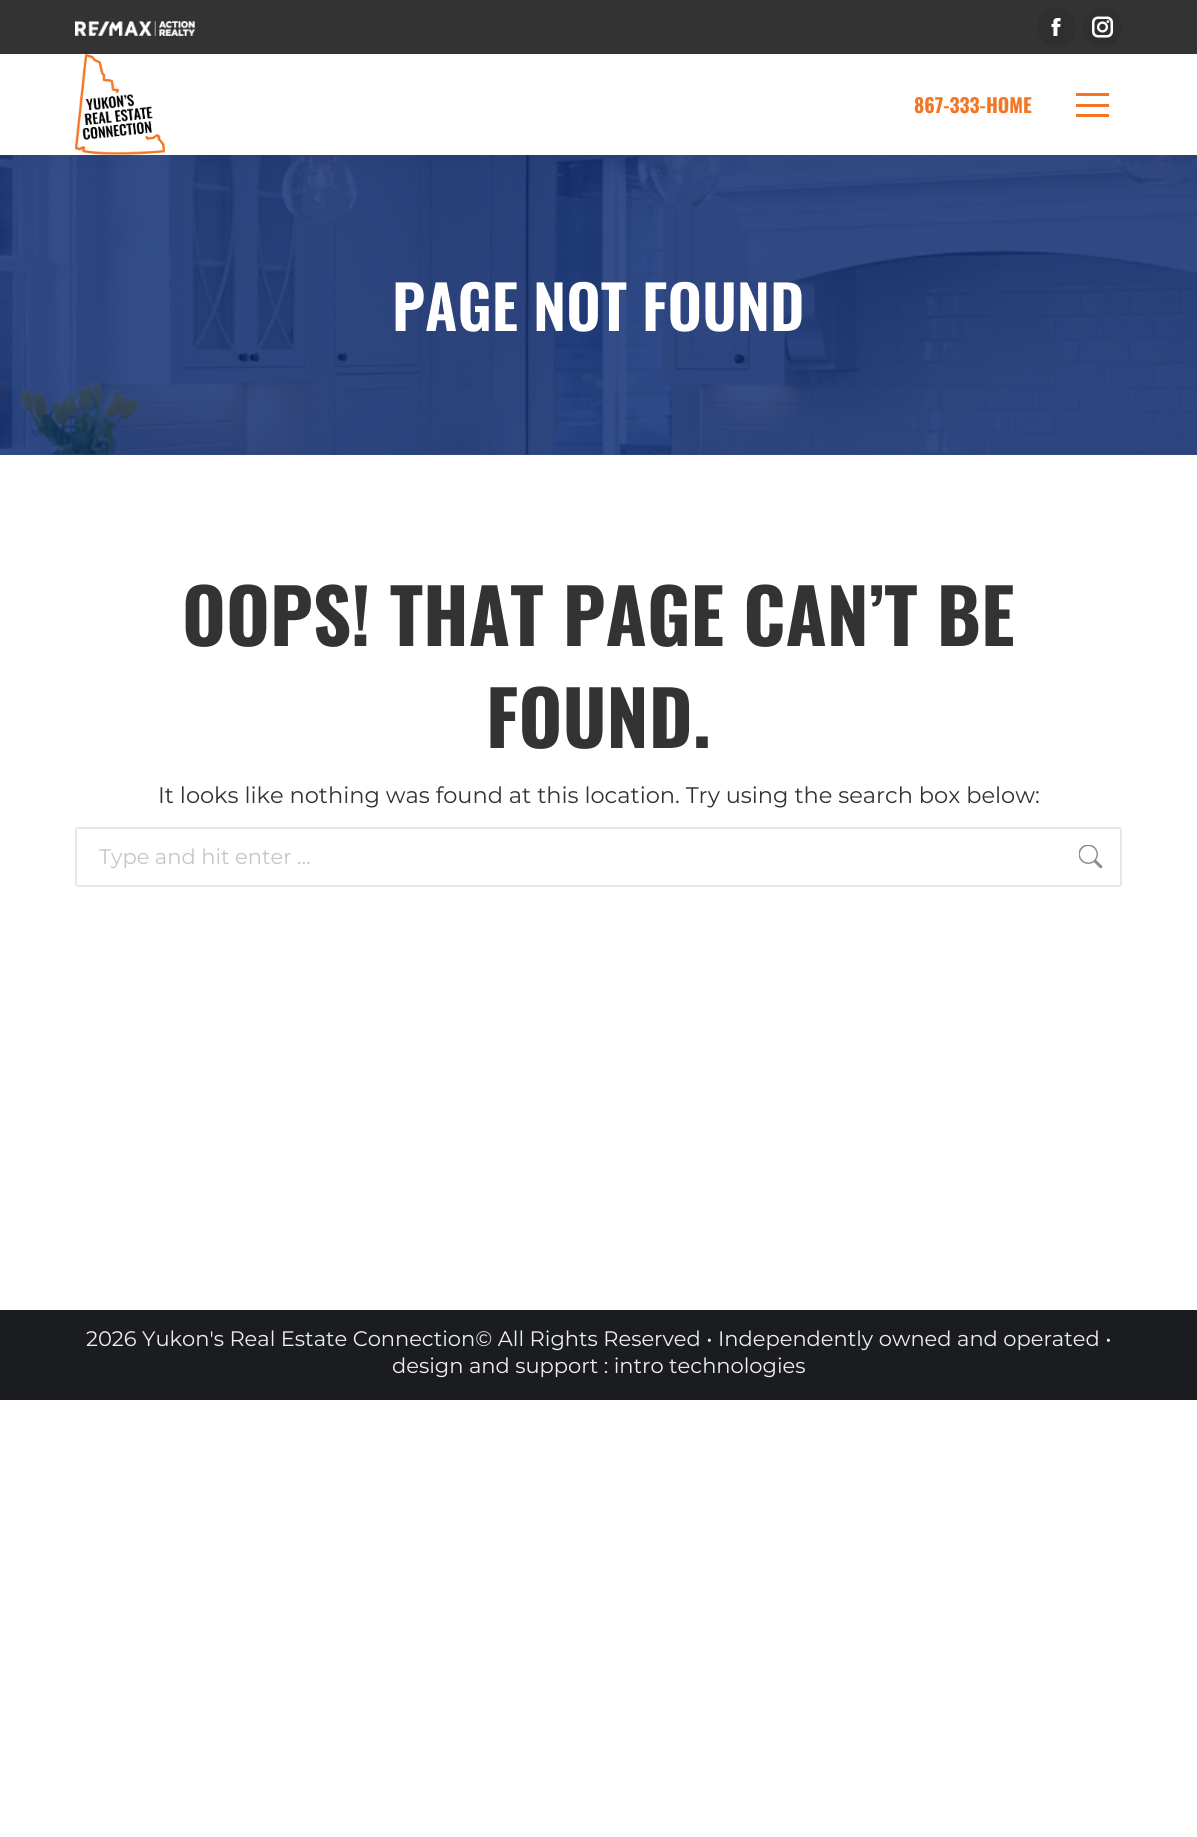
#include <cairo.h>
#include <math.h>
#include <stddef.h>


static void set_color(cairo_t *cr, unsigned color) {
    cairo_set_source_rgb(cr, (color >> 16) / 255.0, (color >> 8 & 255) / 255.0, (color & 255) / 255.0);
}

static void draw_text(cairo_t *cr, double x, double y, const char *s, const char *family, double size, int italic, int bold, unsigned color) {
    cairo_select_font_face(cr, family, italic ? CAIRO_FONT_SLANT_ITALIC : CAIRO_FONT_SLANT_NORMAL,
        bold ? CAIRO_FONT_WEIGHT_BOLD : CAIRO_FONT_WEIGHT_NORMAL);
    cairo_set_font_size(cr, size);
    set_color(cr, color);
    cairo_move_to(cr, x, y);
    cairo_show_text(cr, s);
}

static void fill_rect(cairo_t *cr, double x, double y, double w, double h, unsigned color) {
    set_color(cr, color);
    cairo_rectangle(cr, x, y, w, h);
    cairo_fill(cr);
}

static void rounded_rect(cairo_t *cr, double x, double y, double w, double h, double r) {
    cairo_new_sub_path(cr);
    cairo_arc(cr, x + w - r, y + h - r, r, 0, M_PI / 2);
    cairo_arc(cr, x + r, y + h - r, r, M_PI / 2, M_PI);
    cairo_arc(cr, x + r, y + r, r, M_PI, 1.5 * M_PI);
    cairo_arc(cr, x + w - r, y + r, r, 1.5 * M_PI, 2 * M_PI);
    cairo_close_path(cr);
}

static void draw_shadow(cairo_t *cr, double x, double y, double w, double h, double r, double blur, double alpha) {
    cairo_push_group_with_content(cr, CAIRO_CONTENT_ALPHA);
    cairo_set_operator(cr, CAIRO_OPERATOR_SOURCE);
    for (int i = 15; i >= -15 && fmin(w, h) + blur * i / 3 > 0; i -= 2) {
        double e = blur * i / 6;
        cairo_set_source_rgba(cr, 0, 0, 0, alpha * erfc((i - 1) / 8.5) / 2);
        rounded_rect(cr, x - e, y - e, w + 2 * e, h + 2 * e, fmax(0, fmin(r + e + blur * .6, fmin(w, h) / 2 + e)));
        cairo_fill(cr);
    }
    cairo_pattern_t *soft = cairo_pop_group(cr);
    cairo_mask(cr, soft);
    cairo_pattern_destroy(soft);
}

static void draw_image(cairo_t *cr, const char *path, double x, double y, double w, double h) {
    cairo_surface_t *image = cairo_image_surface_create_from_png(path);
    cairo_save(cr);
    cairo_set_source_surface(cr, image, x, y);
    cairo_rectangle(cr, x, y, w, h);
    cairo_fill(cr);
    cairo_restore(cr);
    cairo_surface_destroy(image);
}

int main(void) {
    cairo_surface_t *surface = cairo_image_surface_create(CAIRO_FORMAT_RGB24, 1197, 1837);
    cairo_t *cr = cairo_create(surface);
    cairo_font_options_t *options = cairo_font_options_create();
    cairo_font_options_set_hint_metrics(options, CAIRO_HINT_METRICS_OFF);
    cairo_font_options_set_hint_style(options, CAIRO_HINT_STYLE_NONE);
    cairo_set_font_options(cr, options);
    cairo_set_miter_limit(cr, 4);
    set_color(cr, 0xFFFFFF);
    cairo_paint(cr);
    fill_rect(cr, 0, 454, 1197, 1, 0x344D88);
    draw_image(cr, "assets/img5.png", 0, 155, 1197, 300);
    set_color(cr, 0x000000);
    draw_shadow(cr, -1, -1, 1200, 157, 0, 11, 0.07);
    fill_rect(cr, 0, 54, 1197, 101, 0xFFFFFF);
    fill_rect(cr, 0, 0, 1197, 54, 0x333333);
    draw_image(cr, "assets/img1.png", 75, 21, 120, 15);
    set_color(cr, 0x2F2F2F);
    cairo_arc(cr, 1056.5, 27.5, 19.5, 0, 2 * M_PI);
    cairo_fill(cr);
    draw_image(cr, "assets/img2.png", 1051, 18, 10, 18);
    cairo_arc(cr, 1102.5, 27.5, 19.5, 0, 2 * M_PI);
    cairo_fill(cr);
    draw_image(cr, "assets/img3.png", 1092, 16, 21, 22);
    draw_image(cr, "assets/img4.png", 75, 54, 90, 101);
    draw_text(cr, 914, 113, "867-333-HOME", "Oswald", 19.5, 0, 1, 0xF47522);
    fill_rect(cr, 1076, 93, 33, 3, 0xF47522);
    fill_rect(cr, 1076, 104, 33, 3, 0xF47522);
    fill_rect(cr, 1076, 114, 33, 3, 0xF47522);
    draw_text(cr, 392, 331, "PAGE NOT FOUND", "Oswald SemiBold", 60, 0, 0, 0xFFFFFF);
    draw_text(cr, 182, 646, "OOPS! THAT PAGE CAN’T BE", "Oswald", 75, 0, 1, 0x333333);
    draw_text(cr, 486, 748, "FOUND.", "Oswald", 75, 0, 1, 0x333333);
    draw_text(cr, 158, 803, "It looks like nothing was found at this location. Try using the search box below:", "Montserrat", 22.5, 0, 0, 0x333333);
    rounded_rect(cr, 76, 828, 1045, 58, 2);
    set_color(cr, 0xE7E7E7);
    cairo_stroke(cr);
    draw_text(cr, 99, 864, "Type and hit enter …", "Montserrat", 21, 0, 0, 0xC4C5C9);
    draw_image(cr, "assets/img6.png", 1079, 845, 24, 24);
    fill_rect(cr, 0, 1310, 1197, 90, 0x1A1C20);
    draw_text(cr, 86, 1346, "2026 Yukon's Real Estate Connection© All Rights Reserved • Independently owned and operated •", "Montserrat", 21, 0, 0, 0xEEEEEE);
    draw_text(cr, 392, 1373, "design and support : intro technologies", "Montserrat", 21, 0, 0, 0xEEEEEE);
    cairo_surface_write_to_png(surface, "output.png");
    cairo_font_options_destroy(options);
    cairo_destroy(cr);
    cairo_surface_destroy(surface);
    return 0;
}
